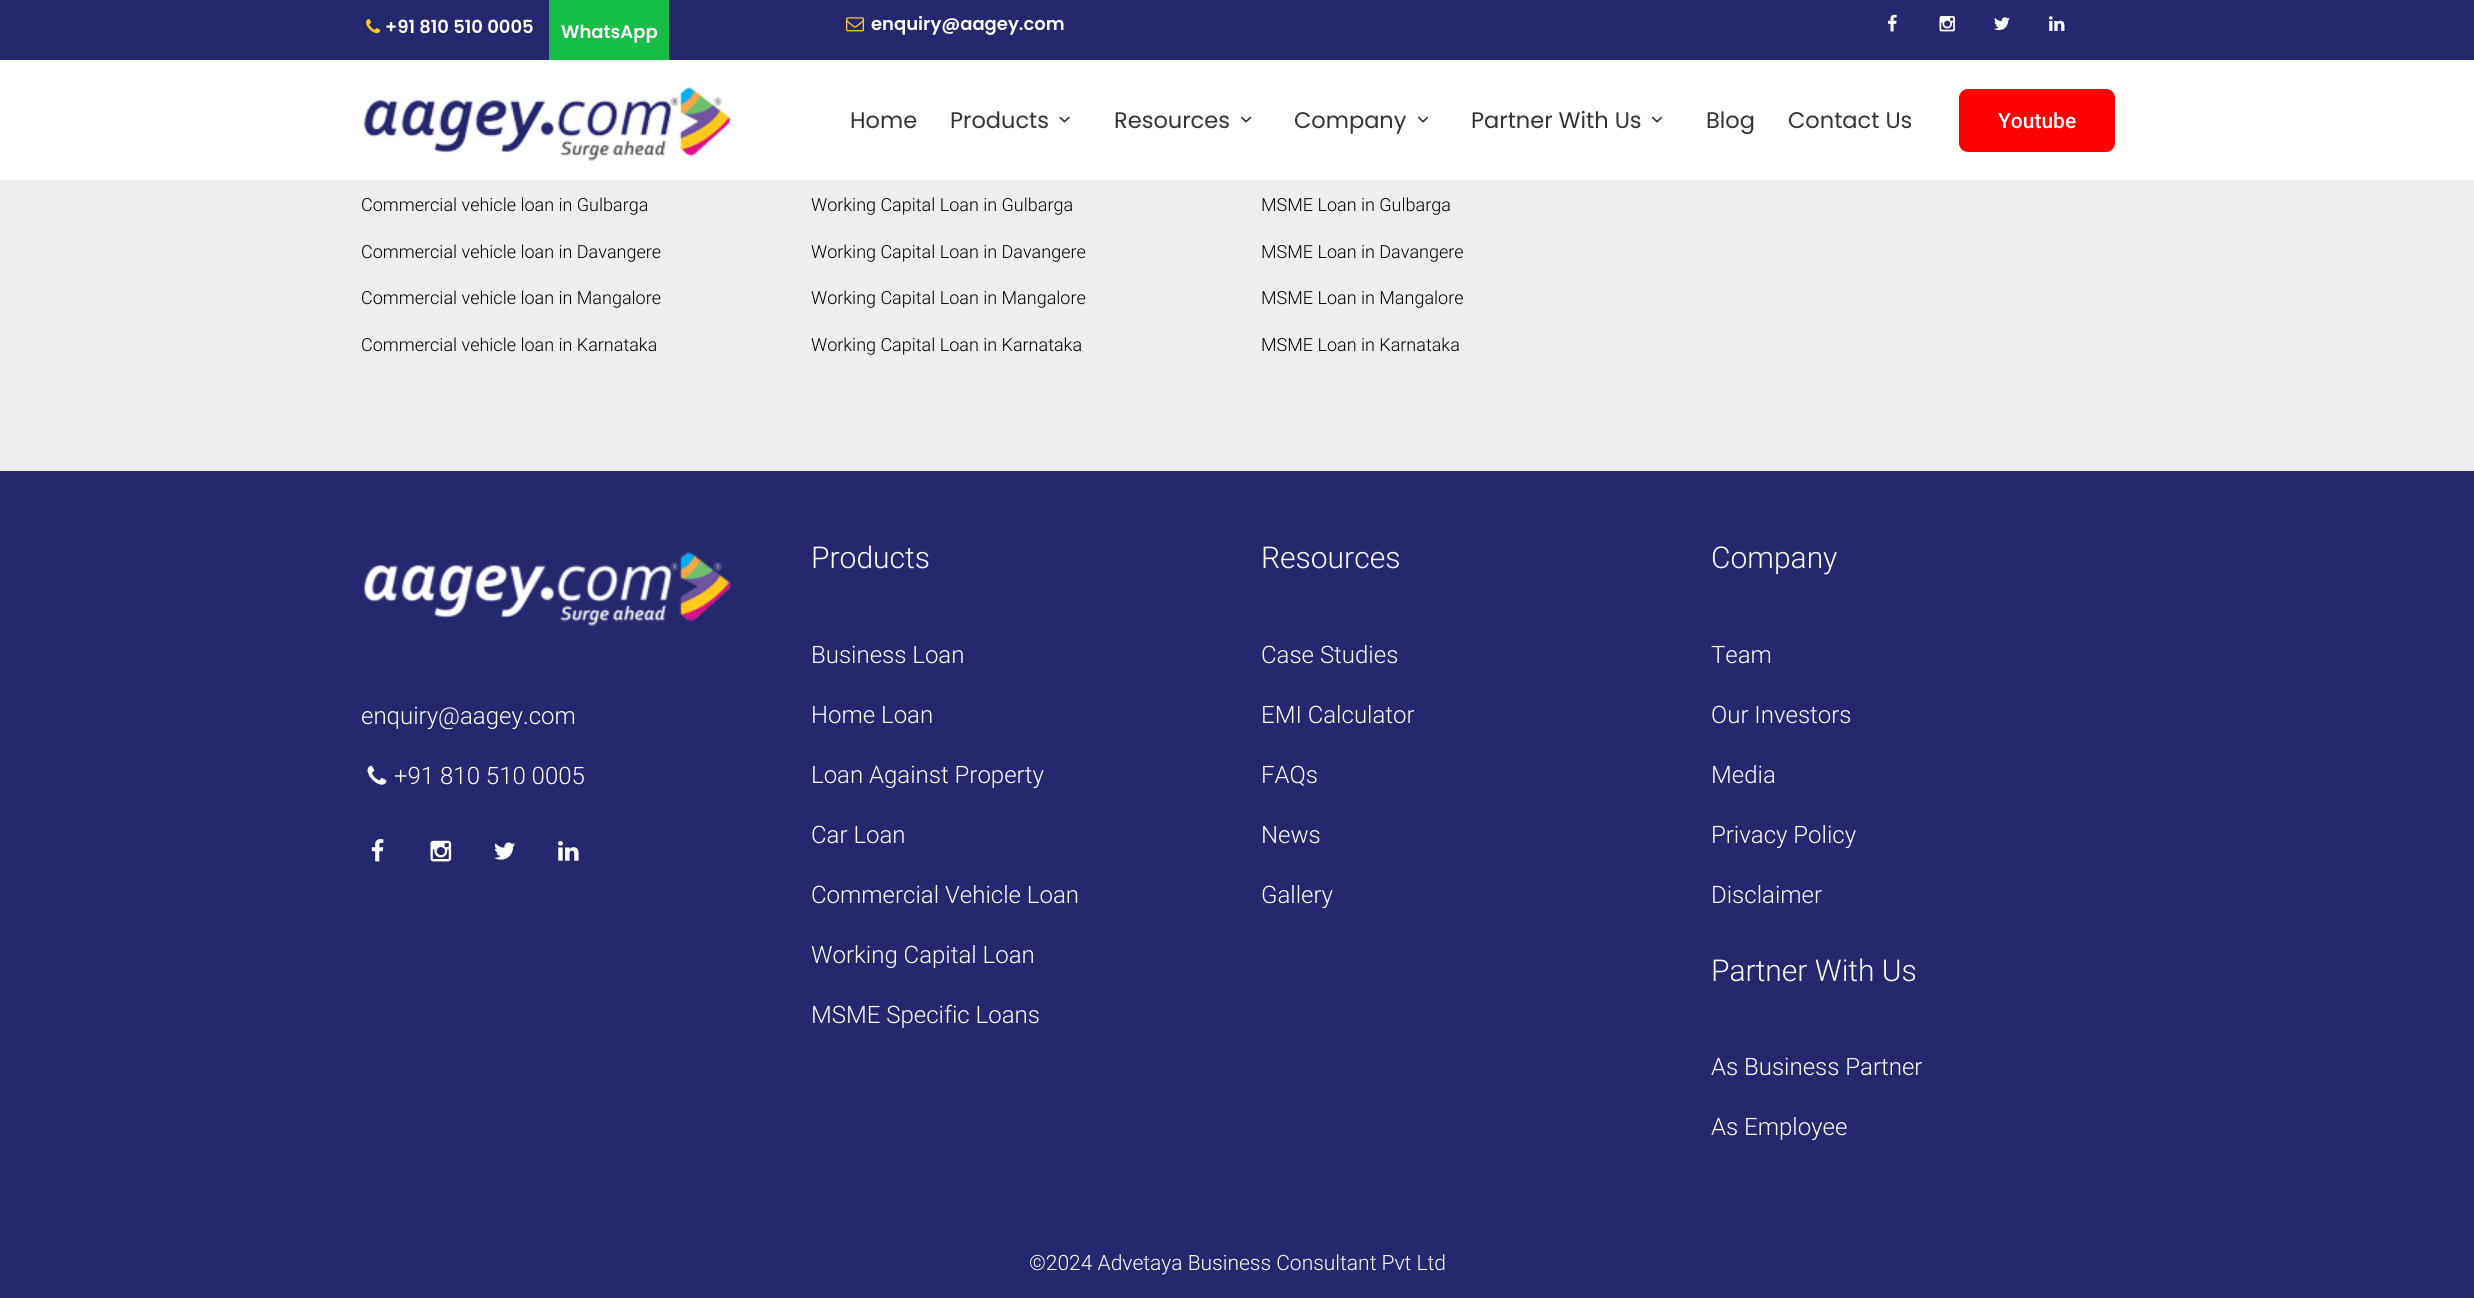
#include <cairo.h>
#include <math.h>
#include <stddef.h>


static void set_color(cairo_t *cr, unsigned color) {
    cairo_set_source_rgb(cr, (color >> 16) / 255.0, (color >> 8 & 255) / 255.0, (color & 255) / 255.0);
}

static void draw_text(cairo_t *cr, double x, double y, const char *s, const char *family, double size, int italic, int bold, unsigned color) {
    cairo_select_font_face(cr, family, italic ? CAIRO_FONT_SLANT_ITALIC : CAIRO_FONT_SLANT_NORMAL,
        bold ? CAIRO_FONT_WEIGHT_BOLD : CAIRO_FONT_WEIGHT_NORMAL);
    cairo_set_font_size(cr, size);
    set_color(cr, color);
    cairo_move_to(cr, x, y);
    cairo_show_text(cr, s);
}

static void fill_rect(cairo_t *cr, double x, double y, double w, double h, unsigned color) {
    set_color(cr, color);
    cairo_rectangle(cr, x, y, w, h);
    cairo_fill(cr);
}

static void rounded_rect(cairo_t *cr, double x, double y, double w, double h, double r) {
    cairo_new_sub_path(cr);
    cairo_arc(cr, x + w - r, y + h - r, r, 0, M_PI / 2);
    cairo_arc(cr, x + r, y + h - r, r, M_PI / 2, M_PI);
    cairo_arc(cr, x + r, y + r, r, M_PI, 1.5 * M_PI);
    cairo_arc(cr, x + w - r, y + r, r, 1.5 * M_PI, 2 * M_PI);
    cairo_close_path(cr);
}

static void draw_image(cairo_t *cr, const char *path, double x, double y, double w, double h) {
    cairo_surface_t *image = cairo_image_surface_create_from_png(path);
    cairo_save(cr);
    cairo_set_source_surface(cr, image, x, y);
    cairo_rectangle(cr, x, y, w, h);
    cairo_fill(cr);
    cairo_restore(cr);
    cairo_surface_destroy(image);
}

int main(void) {
    cairo_surface_t *surface = cairo_image_surface_create(CAIRO_FORMAT_RGB24, 2474, 1298);
    cairo_t *cr = cairo_create(surface);
    cairo_font_options_t *options = cairo_font_options_create();
    cairo_font_options_set_hint_metrics(options, CAIRO_HINT_METRICS_OFF);
    cairo_font_options_set_hint_style(options, CAIRO_HINT_STYLE_NONE);
    cairo_set_font_options(cr, options);
    cairo_set_miter_limit(cr, 4);
    set_color(cr, 0xEEEEEE);
    cairo_paint(cr);
    fill_rect(cr, 0, 0, 2474, 60, 0x26286F);
    draw_image(cr, "assets/img1.png", 366, 19, 15, 15);
    draw_text(cr, 385, 33, "+91 810 510 0005", "Poppins SemiBold", 18, 0, 0, 0xFFFFFF);
    fill_rect(cr, 549, 0, 120, 60, 0x16BE45);
    draw_text(cr, 561, 38, "WhatsApp", "Poppins SemiBold", 18, 0, 0, 0xFFFFFF);
    draw_image(cr, "assets/img2.png", 846, 17, 18, 15);
    draw_text(cr, 871, 30, "enquiry@aagey.com", "Poppins SemiBold", 18, 0, 0, 0xFFFFFF);
    draw_image(cr, "assets/img3.png", 1887, 14, 10, 18);
    draw_image(cr, "assets/img4.png", 1939, 16, 16, 16);
    draw_image(cr, "assets/img5.png", 1994, 17, 16, 14);
    draw_image(cr, "assets/img6.png", 2049, 16, 16, 15);
    fill_rect(cr, 0, 60, 2474, 120, 0xFFFFFF);
    draw_image(cr, "assets/img7.png", 364, 86, 367, 75);
    draw_text(cr, 850, 128, "Home", "Poppins", 22.5, 0, 0, 0x333333);
    draw_text(cr, 950, 128, "Products", "Poppins", 22.5, 0, 0, 0x333333);
    draw_image(cr, "assets/img8.png", 1059, 116, 11, 7);
    draw_text(cr, 1114, 128, "Resources", "Poppins", 22.5, 0, 0, 0x333333);
    draw_image(cr, "assets/img9.png", 1240, 116, 12, 7);
    draw_text(cr, 1294, 128, "Company", "Poppins", 22.5, 0, 0, 0x333333);
    draw_image(cr, "assets/img9.png", 1417, 116, 12, 7);
    draw_text(cr, 1471, 128, "Partner With Us", "Poppins", 22.5, 0, 0, 0x333333);
    draw_image(cr, "assets/img9.png", 1651, 116, 12, 7);
    draw_text(cr, 1706, 128, "Blog", "Poppins", 22.5, 0, 0, 0x333333);
    draw_text(cr, 1788, 128, "Contact Us", "Poppins", 22.5, 0, 0, 0x333333);
    set_color(cr, 0xFF0000);
    rounded_rect(cr, 1960, 90, 154, 61, 8);
    cairo_fill_preserve(cr);
    cairo_stroke(cr);
    draw_text(cr, 1998, 128, "Youtube", "Roboto Medium", 21, 0, 0, 0xFFFFFF);
    draw_text(cr, 361, 211, "Commercial vehicle loan in Gulbarga", "Roboto Light", 18, 0, 0, 0x000000);
    draw_text(cr, 361, 258, "Commercial vehicle loan in Davangere", "Roboto Light", 18, 0, 0, 0x000000);
    draw_text(cr, 361, 304, "Commercial vehicle loan in Mangalore", "Roboto Light", 18, 0, 0, 0x000000);
    draw_text(cr, 361, 351, "Commercial vehicle loan in Karnataka", "Roboto Light", 18, 0, 0, 0x000000);
    draw_text(cr, 811, 211, "Working Capital Loan in Gulbarga", "Roboto Light", 18, 0, 0, 0x000000);
    draw_text(cr, 811, 258, "Working Capital Loan in Davangere", "Roboto Light", 18, 0, 0, 0x000000);
    draw_text(cr, 811, 304, "Working Capital Loan in Mangalore", "Roboto Light", 18, 0, 0, 0x000000);
    draw_text(cr, 811, 351, "Working Capital Loan in Karnataka", "Roboto Light", 18, 0, 0, 0x000000);
    draw_text(cr, 1261, 211, "MSME Loan in Gulbarga", "Roboto Light", 18, 0, 0, 0x000000);
    draw_text(cr, 1261, 258, "MSME Loan in Davangere", "Roboto Light", 18, 0, 0, 0x000000);
    draw_text(cr, 1261, 304, "MSME Loan in Mangalore", "Roboto Light", 18, 0, 0, 0x000000);
    draw_text(cr, 1261, 351, "MSME Loan in Karnataka", "Roboto Light", 18, 0, 0, 0x000000);
    fill_rect(cr, 0, 471, 2474, 827, 0x26286F);
    draw_image(cr, "assets/img10.png", 364, 551, 367, 75);
    draw_text(cr, 361, 724, "enquiry@aagey.com", "Roboto Light", 24, 0, 0, 0xFFFFFF);
    draw_image(cr, "assets/img11.png", 367, 765, 20, 20);
    draw_text(cr, 394, 784, "+91 810 510 0005", "Roboto Light", 24, 0, 0, 0xFFFFFF);
    draw_image(cr, "assets/img12.png", 371, 839, 13, 23);
    draw_image(cr, "assets/img13.png", 430, 840, 22, 22);
    draw_image(cr, "assets/img14.png", 494, 842, 21, 18);
    draw_image(cr, "assets/img15.png", 558, 841, 21, 20);
    draw_text(cr, 811, 568, "Products", "Roboto Light", 30, 0, 0, 0xFFFFFF);
    draw_text(cr, 811, 663, "Business Loan", "Roboto Light", 24, 0, 0, 0xFFFFFF);
    draw_text(cr, 811, 723, "Home Loan", "Roboto Light", 24, 0, 0, 0xFFFFFF);
    draw_text(cr, 811, 783, "Loan Against Property", "Roboto Light", 24, 0, 0, 0xFFFFFF);
    draw_text(cr, 811, 843, "Car Loan", "Roboto Light", 24, 0, 0, 0xFFFFFF);
    draw_text(cr, 811, 903, "Commercial Vehicle Loan", "Roboto Light", 24, 0, 0, 0xFFFFFF);
    draw_text(cr, 811, 963, "Working Capital Loan", "Roboto Light", 24, 0, 0, 0xFFFFFF);
    draw_text(cr, 811, 1023, "MSME Specific Loans", "Roboto Light", 24, 0, 0, 0xFFFFFF);
    draw_text(cr, 1261, 568, "Resources", "Roboto Light", 30, 0, 0, 0xFFFFFF);
    draw_text(cr, 1261, 663, "Case Studies", "Roboto Light", 24, 0, 0, 0xFFFFFF);
    draw_text(cr, 1261, 723, "EMI Calculator", "Roboto Light", 24, 0, 0, 0xFFFFFF);
    draw_text(cr, 1261, 783, "FAQs", "Roboto Light", 24, 0, 0, 0xFFFFFF);
    draw_text(cr, 1261, 843, "News", "Roboto Light", 24, 0, 0, 0xFFFFFF);
    draw_text(cr, 1261, 903, "Gallery", "Roboto Light", 24, 0, 0, 0xFFFFFF);
    draw_text(cr, 1711, 568, "Company", "Roboto Light", 30, 0, 0, 0xFFFFFF);
    draw_text(cr, 1711, 663, "Team", "Roboto Light", 24, 0, 0, 0xFFFFFF);
    draw_text(cr, 1711, 723, "Our Investors", "Roboto Light", 24, 0, 0, 0xFFFFFF);
    draw_text(cr, 1711, 783, "Media", "Roboto Light", 24, 0, 0, 0xFFFFFF);
    draw_text(cr, 1711, 843, "Privacy Policy", "Roboto Light", 24, 0, 0, 0xFFFFFF);
    draw_text(cr, 1711, 903, "Disclaimer", "Roboto Light", 24, 0, 0, 0xFFFFFF);
    draw_text(cr, 1711, 981, "Partner With Us", "Roboto Light", 30, 0, 0, 0xFFFFFF);
    draw_text(cr, 1711, 1075, "As Business Partner", "Roboto Light", 24, 0, 0, 0xFFFFFF);
    draw_text(cr, 1711, 1135, "As Employee", "Roboto Light", 24, 0, 0, 0xFFFFFF);
    draw_text(cr, 1029, 1270, "©2024 Advetaya Business Consultant Pvt Ltd", "Roboto Light", 21, 0, 0, 0xFFFFFF);
    cairo_surface_write_to_png(surface, "output.png");
    cairo_font_options_destroy(options);
    cairo_destroy(cr);
    cairo_surface_destroy(surface);
    return 0;
}
